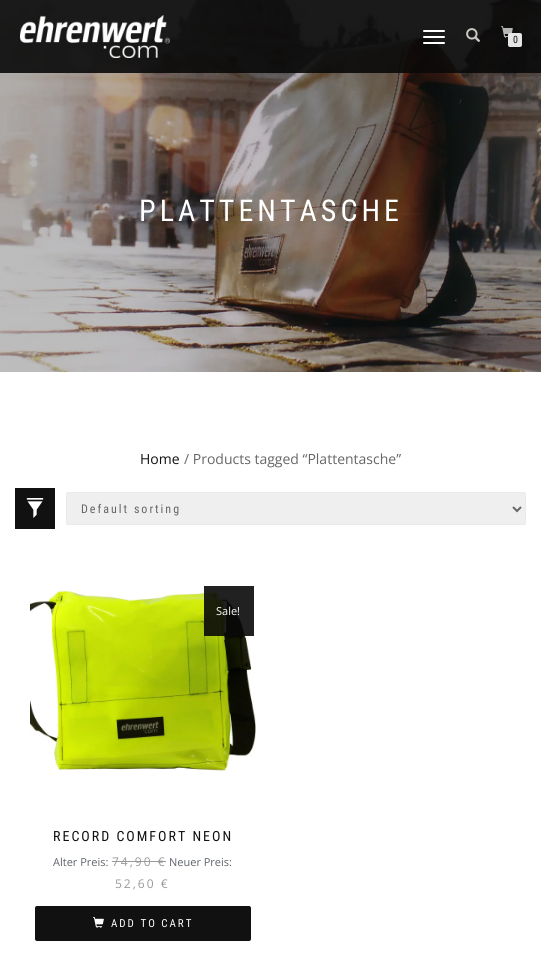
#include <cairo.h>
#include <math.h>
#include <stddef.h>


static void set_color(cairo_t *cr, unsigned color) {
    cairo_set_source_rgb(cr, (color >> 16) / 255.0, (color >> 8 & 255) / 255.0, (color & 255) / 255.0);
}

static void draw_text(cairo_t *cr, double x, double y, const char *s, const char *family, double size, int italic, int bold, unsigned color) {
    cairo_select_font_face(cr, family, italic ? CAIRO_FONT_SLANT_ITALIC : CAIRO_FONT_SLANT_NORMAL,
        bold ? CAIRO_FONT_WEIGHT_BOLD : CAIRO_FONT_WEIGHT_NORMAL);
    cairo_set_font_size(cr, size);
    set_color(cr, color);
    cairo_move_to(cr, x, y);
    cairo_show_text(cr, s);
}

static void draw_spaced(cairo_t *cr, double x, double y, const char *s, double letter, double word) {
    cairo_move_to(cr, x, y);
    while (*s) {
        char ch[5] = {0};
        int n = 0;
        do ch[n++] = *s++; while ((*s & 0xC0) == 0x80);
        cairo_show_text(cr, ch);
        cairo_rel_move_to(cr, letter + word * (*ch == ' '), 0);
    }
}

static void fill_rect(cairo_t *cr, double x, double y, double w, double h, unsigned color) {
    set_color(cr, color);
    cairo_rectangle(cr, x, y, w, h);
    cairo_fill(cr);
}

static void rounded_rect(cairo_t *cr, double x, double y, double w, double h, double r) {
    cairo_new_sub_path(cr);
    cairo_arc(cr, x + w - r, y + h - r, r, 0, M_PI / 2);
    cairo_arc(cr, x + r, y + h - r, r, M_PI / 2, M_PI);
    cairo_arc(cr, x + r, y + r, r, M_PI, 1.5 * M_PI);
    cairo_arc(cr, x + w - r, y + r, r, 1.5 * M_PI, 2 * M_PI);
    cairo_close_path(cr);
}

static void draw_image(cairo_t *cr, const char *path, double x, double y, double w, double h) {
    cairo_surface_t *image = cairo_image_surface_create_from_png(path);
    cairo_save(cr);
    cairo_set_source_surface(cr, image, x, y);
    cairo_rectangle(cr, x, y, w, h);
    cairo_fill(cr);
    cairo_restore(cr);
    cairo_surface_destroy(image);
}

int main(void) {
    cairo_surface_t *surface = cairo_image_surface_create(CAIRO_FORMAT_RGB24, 541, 963);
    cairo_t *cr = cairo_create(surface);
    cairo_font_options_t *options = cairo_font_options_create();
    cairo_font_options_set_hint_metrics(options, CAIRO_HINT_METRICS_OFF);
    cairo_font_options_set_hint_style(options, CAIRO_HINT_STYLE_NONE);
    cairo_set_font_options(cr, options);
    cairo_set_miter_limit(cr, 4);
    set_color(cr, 0xFFFFFF);
    cairo_paint(cr);
    draw_image(cr, "assets/img4.png", 0, 0, 541, 372);
    cairo_set_source_rgba(cr, 0.039, 0.039, 0.039, 0.9);
    cairo_rectangle(cr, 0, 0, 541, 73);
    cairo_fill(cr);
    draw_image(cr, "assets/img1.png", 20, 15, 150, 43);
    set_color(cr, 0xFFFFFF);
    rounded_rect(cr, 423, 30, 22, 2, 1);
    cairo_fill(cr);
    rounded_rect(cr, 423, 36, 22, 2, 1);
    cairo_fill(cr);
    rounded_rect(cr, 423, 42, 22, 2, 1);
    cairo_fill(cr);
    draw_image(cr, "assets/img2.png", 466, 28, 15, 14);
    draw_image(cr, "assets/img3.png", 501, 26, 12, 12);
    set_color(cr, 0xE5E5E5);
    rounded_rect(cr, 508, 33, 14, 14, 2);
    cairo_fill(cr);
    draw_text(cr, 513, 43, "0", "Roboto Condensed", 10, 0, 0, 0x111111);
    cairo_set_font_size(cr, 30);
    set_color(cr, 0xFFFFFF);
    draw_spaced(cr, 139, 221, "PLATTENTASCHE", 4, 0);
    draw_text(cr, 140, 464, "Home", "Open Sans", 14, 0, 0, 0x111111);
    draw_text(cr, 184, 464, "/ Products tagged “Plattentasche”", "Open Sans", 14, 0, 0, 0x666666);
    fill_rect(cr, 15, 488, 40, 41, 0x111111);
    draw_image(cr, "assets/img5.png", 26, 498, 18, 20);
    set_color(cr, 0xEFEFEF);
    rounded_rect(cr, 66.5, 492.5, 459, 32, 1.5);
    cairo_fill_preserve(cr);
    set_color(cr, 0xEAEAEA);
    cairo_set_line_width(cr, 1);
    cairo_stroke(cr);
    cairo_new_path(cr);
    cairo_move_to(cr, 513, 507);
    cairo_line_to(cr, 517, 511);
    cairo_line_to(cr, 521, 507);
    set_color(cr, 0x666666);
    cairo_set_line_width(cr, 2);
    cairo_stroke(cr);
    cairo_select_font_face(cr, "Roboto Condensed", CAIRO_FONT_SLANT_NORMAL, CAIRO_FONT_WEIGHT_NORMAL);
    cairo_set_font_size(cr, 12);
    draw_spaced(cr, 81, 513, "Default sorting", 2, 0);
    draw_image(cr, "assets/img6.png", 30, 591, 226, 180);
    cairo_set_source_rgba(cr, 0.039, 0.039, 0.039, 0.9);
    cairo_rectangle(cr, 204, 586, 50, 50);
    cairo_fill(cr);
    draw_text(cr, 216, 615, "Sale!", "Open Sans", 11, 0, 0, 0xFFFFFF);
    cairo_select_font_face(cr, "Roboto Condensed", CAIRO_FONT_SLANT_NORMAL, CAIRO_FONT_WEIGHT_NORMAL);
    cairo_set_font_size(cr, 14);
    set_color(cr, 0x111111);
    draw_spaced(cr, 53, 841, "RECORD COMFORT NEON", 2, 0);
    draw_text(cr, 53, 866, "Alter Preis:", "Open Sans", 11, 0, 0, 0x60646C);
    cairo_set_font_size(cr, 12);
    set_color(cr, 0x999999);
    draw_spaced(cr, 112, 866, "74,90 €", 2, 0);
    fill_rect(cr, 112, 861, 54, 1, 0x999999);
    draw_text(cr, 169, 866, "Neuer Preis:", "Open Sans", 11, 0, 0, 0x60646C);
    cairo_set_font_size(cr, 12);
    set_color(cr, 0x999999);
    draw_spaced(cr, 115, 888, "52,60 €", 2, 0);
    set_color(cr, 0x111111);
    rounded_rect(cr, 35, 906, 216, 35, 2);
    cairo_fill(cr);
    draw_image(cr, "assets/img7.png", 93, 917, 11, 11);
    cairo_select_font_face(cr, "Roboto Condensed", CAIRO_FONT_SLANT_NORMAL, CAIRO_FONT_WEIGHT_NORMAL);
    cairo_set_font_size(cr, 11);
    set_color(cr, 0xFFFFFF);
    draw_spaced(cr, 111, 927, "ADD TO CART", 2, 0);
    cairo_surface_write_to_png(surface, "output.png");
    cairo_font_options_destroy(options);
    cairo_destroy(cr);
    cairo_surface_destroy(surface);
    return 0;
}
